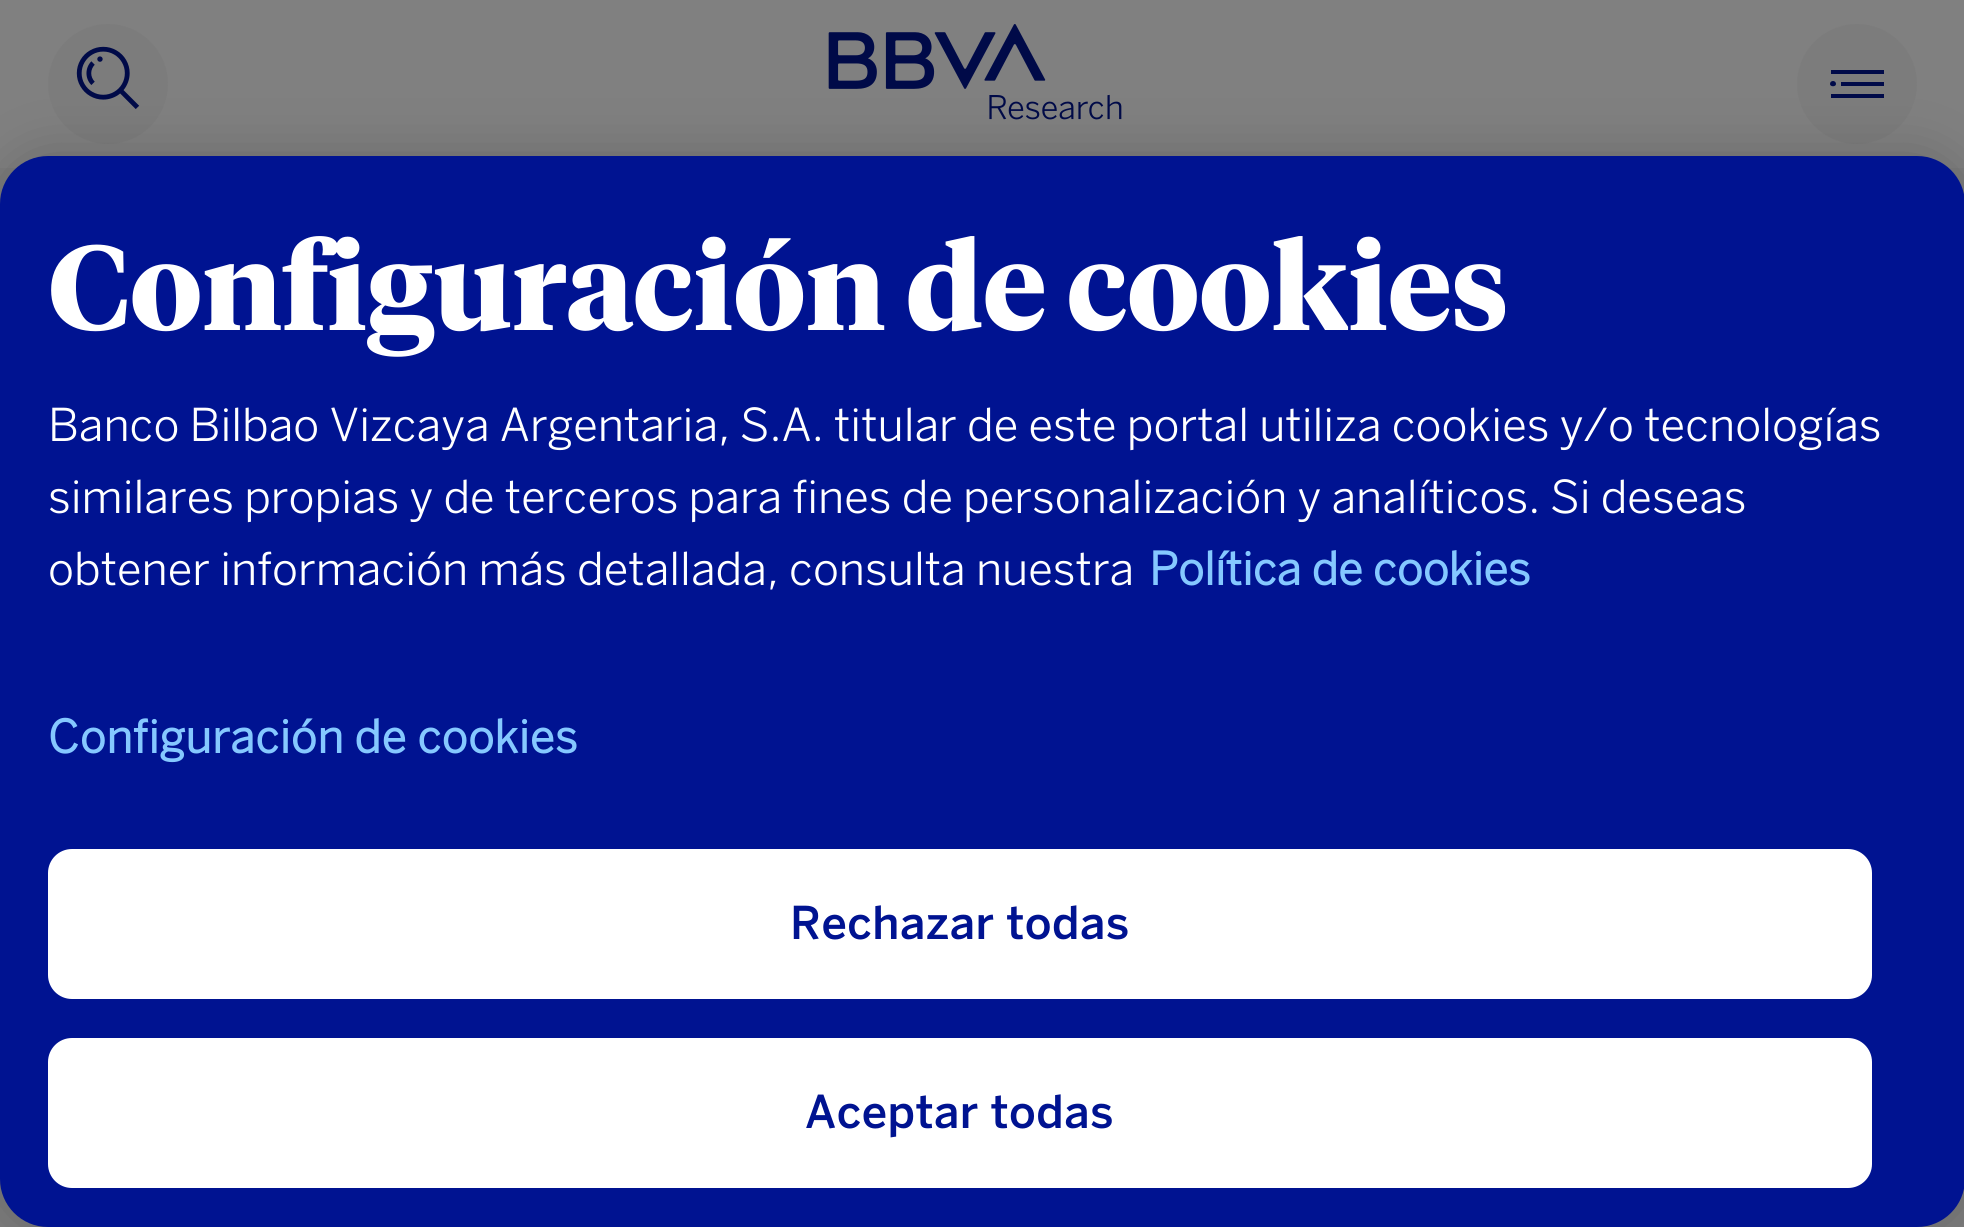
#include <cairo.h>
#include <math.h>
#include <stddef.h>


static void set_color(cairo_t *cr, unsigned color) {
    cairo_set_source_rgb(cr, (color >> 16) / 255.0, (color >> 8 & 255) / 255.0, (color & 255) / 255.0);
}

static void draw_text(cairo_t *cr, double x, double y, const char *s, const char *family, double size, int italic, int bold, unsigned color) {
    cairo_select_font_face(cr, family, italic ? CAIRO_FONT_SLANT_ITALIC : CAIRO_FONT_SLANT_NORMAL,
        bold ? CAIRO_FONT_WEIGHT_BOLD : CAIRO_FONT_WEIGHT_NORMAL);
    cairo_set_font_size(cr, size);
    set_color(cr, color);
    cairo_move_to(cr, x, y);
    cairo_show_text(cr, s);
}

static void draw_spaced(cairo_t *cr, double x, double y, const char *s, double letter, double word) {
    cairo_move_to(cr, x, y);
    while (*s) {
        char ch[5] = {0};
        int n = 0;
        do ch[n++] = *s++; while ((*s & 0xC0) == 0x80);
        cairo_show_text(cr, ch);
        cairo_rel_move_to(cr, letter + word * (*ch == ' '), 0);
    }
}

static void fill_rect(cairo_t *cr, double x, double y, double w, double h, unsigned color) {
    set_color(cr, color);
    cairo_rectangle(cr, x, y, w, h);
    cairo_fill(cr);
}

static void rounded_rect(cairo_t *cr, double x, double y, double w, double h, double r) {
    cairo_new_sub_path(cr);
    cairo_arc(cr, x + w - r, y + h - r, r, 0, M_PI / 2);
    cairo_arc(cr, x + r, y + h - r, r, M_PI / 2, M_PI);
    cairo_arc(cr, x + r, y + r, r, M_PI, 1.5 * M_PI);
    cairo_arc(cr, x + w - r, y + r, r, 1.5 * M_PI, 2 * M_PI);
    cairo_close_path(cr);
}

static void draw_shadow(cairo_t *cr, double x, double y, double w, double h, double r, double blur, double alpha) {
    cairo_push_group_with_content(cr, CAIRO_CONTENT_ALPHA);
    cairo_set_operator(cr, CAIRO_OPERATOR_SOURCE);
    for (int i = 15; i >= -15 && fmin(w, h) + blur * i / 3 > 0; i -= 2) {
        double e = blur * i / 6;
        cairo_set_source_rgba(cr, 0, 0, 0, alpha * erfc((i - 1) / 8.5) / 2);
        rounded_rect(cr, x - e, y - e, w + 2 * e, h + 2 * e, fmax(0, fmin(r + e + blur * .6, fmin(w, h) / 2 + e)));
        cairo_fill(cr);
    }
    cairo_pattern_t *soft = cairo_pop_group(cr);
    cairo_mask(cr, soft);
    cairo_pattern_destroy(soft);
}

static void draw_image(cairo_t *cr, const char *path, double x, double y, double w, double h) {
    cairo_surface_t *image = cairo_image_surface_create_from_png(path);
    cairo_save(cr);
    cairo_set_source_surface(cr, image, x, y);
    cairo_rectangle(cr, x, y, w, h);
    cairo_fill(cr);
    cairo_restore(cr);
    cairo_surface_destroy(image);
}

int main(void) {
    cairo_surface_t *surface = cairo_image_surface_create(CAIRO_FORMAT_RGB24, 1964, 1227);
    cairo_t *cr = cairo_create(surface);
    cairo_font_options_t *options = cairo_font_options_create();
    cairo_font_options_set_hint_metrics(options, CAIRO_HINT_METRICS_OFF);
    cairo_font_options_set_hint_style(options, CAIRO_HINT_STYLE_NONE);
    cairo_set_font_options(cr, options);
    cairo_set_miter_limit(cr, 4);
    set_color(cr, 0x7C7C7C);
    cairo_paint(cr);
    fill_rect(cr, 0, 0, 1964, 168, 0x808080);
    set_color(cr, 0x7C7C7C);
    cairo_arc(cr, 108, 84, 60, 0, 2 * M_PI);
    cairo_fill(cr);
    draw_image(cr, "assets/img1.png", 76, 46, 64, 63);
    draw_image(cr, "assets/img2.png", 828, 24, 294, 96);
    cairo_arc(cr, 1857, 84, 60, 0, 2 * M_PI);
    cairo_fill(cr);
    set_color(cr, 0x000A49);
    cairo_new_path(cr);
    cairo_move_to(cr, 1836, 84);
    cairo_curve_to(cr, 1836, 87, 1830, 87, 1830, 84);
    cairo_curve_to(cr, 1830, 80, 1836, 80, 1836, 84);
    cairo_close_path(cr);
    cairo_move_to(cr, 1884, 70);
    cairo_line_to(cr, 1831, 70);
    cairo_line_to(cr, 1831, 74);
    cairo_line_to(cr, 1884, 74);
    cairo_close_path(cr);
    cairo_move_to(cr, 1884, 94);
    cairo_line_to(cr, 1831, 94);
    cairo_line_to(cr, 1831, 98);
    cairo_line_to(cr, 1884, 98);
    cairo_close_path(cr);
    cairo_move_to(cr, 1884, 82);
    cairo_line_to(cr, 1841, 82);
    cairo_line_to(cr, 1841, 86);
    cairo_line_to(cr, 1884, 86);
    cairo_close_path(cr);
    cairo_fill(cr);
    set_color(cr, 0x000000);
    draw_shadow(cr, 0, 156, 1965, 1071, 48, 27, 0.2);
    set_color(cr, 0x001391);
    rounded_rect(cr, 0, 156, 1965, 1071, 48);
    cairo_fill(cr);
    draw_text(cr, 48, 330, "Configuración de cookies", "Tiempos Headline", 120, 0, 1, 0xFFFFFF);
    draw_text(cr, 48, 441, "Banco Bilbao Vizcaya Argentaria, S.A. titular de este portal utiliza cookies y/o tecnologías", "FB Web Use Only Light", 45, 0, 0, 0xFFFFFF);
    draw_text(cr, 48, 513, "similares propias y de terceros para fines de personalización y analíticos. Si deseas", "FB Web Use Only Light", 45, 0, 0, 0xFFFFFF);
    draw_text(cr, 48, 585, "obtener información más detallada, consulta nuestra", "FB Web Use Only Light", 45, 0, 0, 0xFFFFFF);
    draw_text(cr, 1149, 585, "Política de cookies", "FB Web Use Only", 45, 0, 1, 0x85C8FF);
    draw_spaced(cr, 48, 753, "Configuración de cookies", 0.45, 0);
    set_color(cr, 0xFFFFFF);
    rounded_rect(cr, 49.5, 850.5, 1821, 147, 22.5);
    cairo_fill_preserve(cr);
    cairo_set_line_width(cr, 3);
    cairo_stroke(cr);
    cairo_select_font_face(cr, "FB Web Use Only Medium", CAIRO_FONT_SLANT_NORMAL, CAIRO_FONT_WEIGHT_NORMAL);
    set_color(cr, 0x001391);
    draw_spaced(cr, 790, 939, "Rechazar todas", 0.45, 0);
    set_color(cr, 0xFFFFFF);
    rounded_rect(cr, 49.5, 1039.5, 1821, 147, 22.5);
    cairo_fill_preserve(cr);
    cairo_stroke(cr);
    set_color(cr, 0x001391);
    draw_spaced(cr, 805, 1128, "Aceptar todas", 0.45, 0);
    cairo_surface_write_to_png(surface, "output.png");
    cairo_font_options_destroy(options);
    cairo_destroy(cr);
    cairo_surface_destroy(surface);
    return 0;
}
